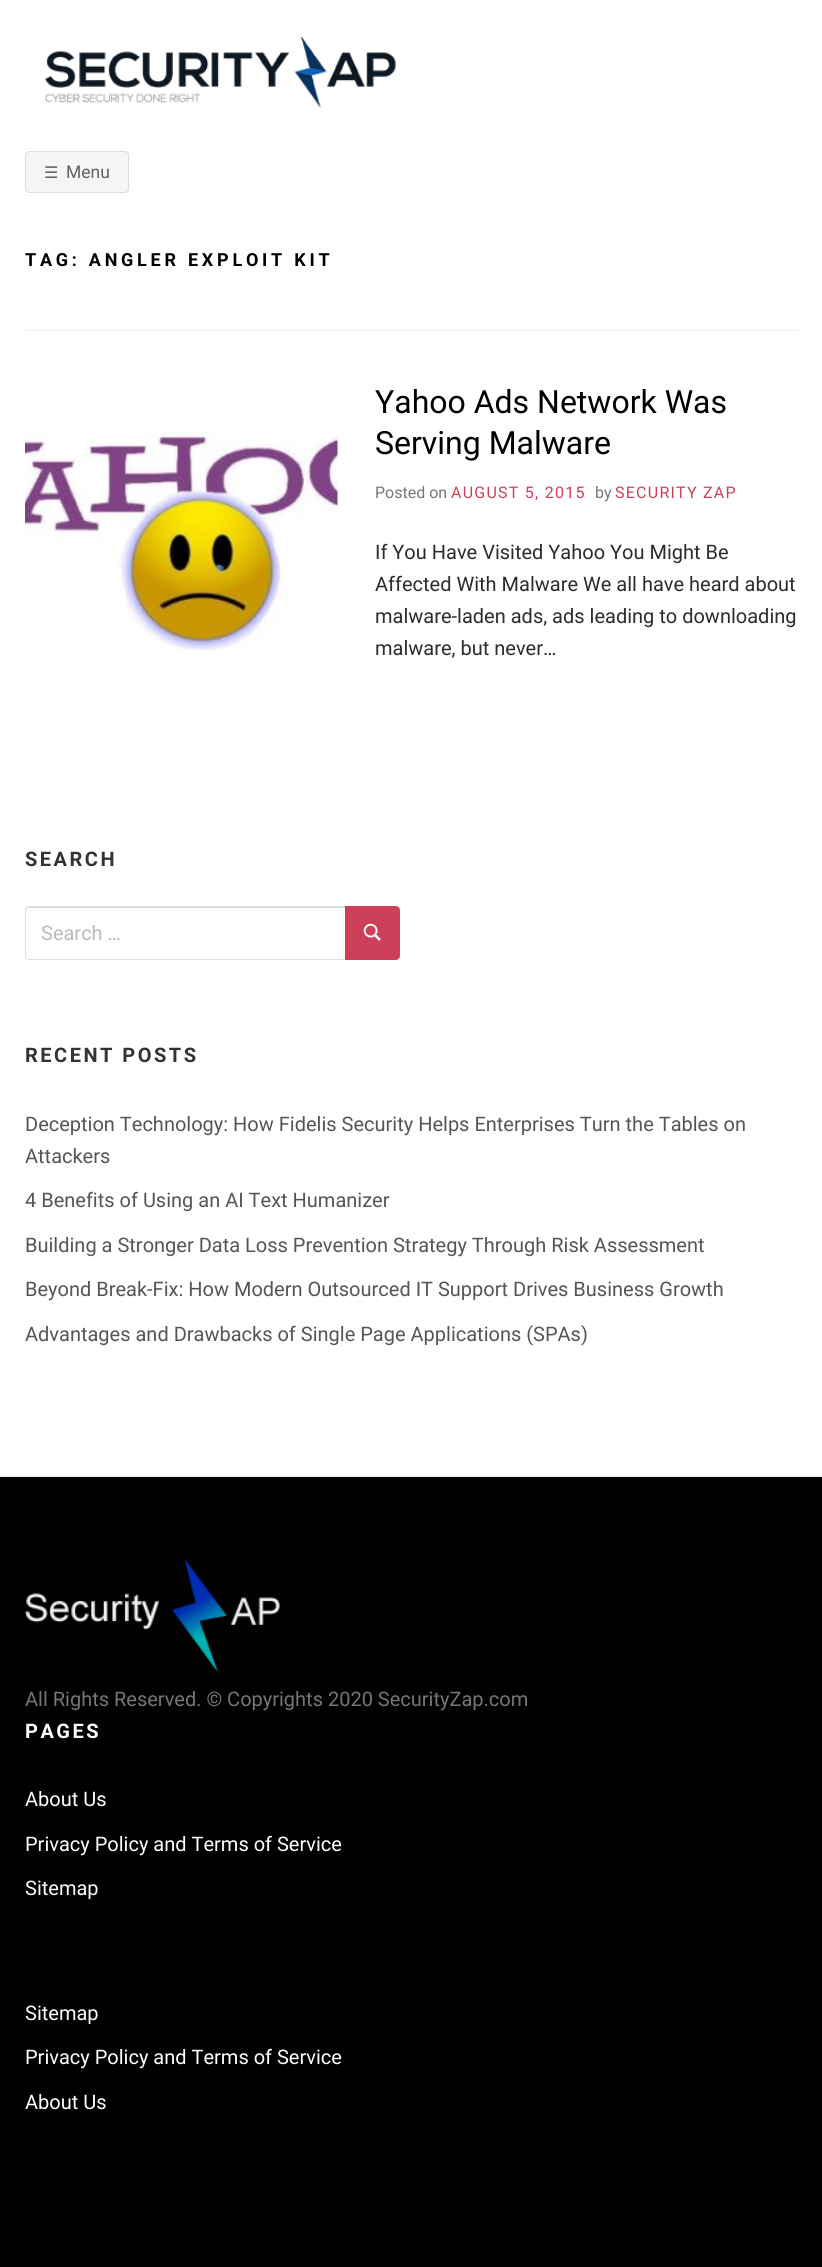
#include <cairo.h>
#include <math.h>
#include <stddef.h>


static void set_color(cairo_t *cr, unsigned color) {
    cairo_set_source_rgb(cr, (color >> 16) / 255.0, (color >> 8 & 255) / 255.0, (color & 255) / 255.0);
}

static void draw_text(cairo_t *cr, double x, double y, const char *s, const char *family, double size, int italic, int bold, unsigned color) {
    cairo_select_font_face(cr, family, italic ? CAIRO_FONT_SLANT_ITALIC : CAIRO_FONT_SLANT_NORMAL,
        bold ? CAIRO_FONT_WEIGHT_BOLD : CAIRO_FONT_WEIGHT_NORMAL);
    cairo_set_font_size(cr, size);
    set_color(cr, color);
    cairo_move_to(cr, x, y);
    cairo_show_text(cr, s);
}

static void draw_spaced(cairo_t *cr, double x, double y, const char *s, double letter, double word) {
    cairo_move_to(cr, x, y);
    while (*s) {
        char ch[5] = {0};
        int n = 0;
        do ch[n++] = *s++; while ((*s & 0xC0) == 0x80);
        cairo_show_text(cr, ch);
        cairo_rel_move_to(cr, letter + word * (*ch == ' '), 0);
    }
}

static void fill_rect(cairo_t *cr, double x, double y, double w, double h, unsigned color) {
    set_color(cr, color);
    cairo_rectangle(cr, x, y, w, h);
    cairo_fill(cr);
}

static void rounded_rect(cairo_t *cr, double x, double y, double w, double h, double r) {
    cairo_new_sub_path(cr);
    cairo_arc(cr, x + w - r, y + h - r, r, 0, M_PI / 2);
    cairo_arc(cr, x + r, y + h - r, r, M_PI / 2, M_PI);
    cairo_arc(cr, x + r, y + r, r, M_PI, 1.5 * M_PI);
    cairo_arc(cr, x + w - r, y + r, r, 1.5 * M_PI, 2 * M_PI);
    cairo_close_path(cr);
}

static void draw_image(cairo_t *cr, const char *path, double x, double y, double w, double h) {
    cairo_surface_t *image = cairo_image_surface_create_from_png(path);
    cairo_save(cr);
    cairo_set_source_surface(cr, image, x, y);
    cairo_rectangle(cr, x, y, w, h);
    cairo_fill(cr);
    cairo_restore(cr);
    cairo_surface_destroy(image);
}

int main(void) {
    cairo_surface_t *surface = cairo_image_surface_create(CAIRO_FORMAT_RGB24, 822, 2267);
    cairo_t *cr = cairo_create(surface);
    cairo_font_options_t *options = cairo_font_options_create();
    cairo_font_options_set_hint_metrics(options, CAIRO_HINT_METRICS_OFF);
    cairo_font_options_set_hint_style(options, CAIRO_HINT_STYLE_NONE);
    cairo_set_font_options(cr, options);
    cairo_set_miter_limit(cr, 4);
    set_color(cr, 0xFFFFFF);
    cairo_paint(cr);
    draw_image(cr, "assets/img1.png", 44, 36, 352, 72);
    set_color(cr, 0xF5F5F5);
    rounded_rect(cr, 25, 151, 104, 42, 4);
    cairo_fill(cr);
    rounded_rect(cr, 25.5, 151.5, 103, 41, 3.5);
    cairo_set_source_rgba(cr, 0, 0, 0, 0.1);
    cairo_set_line_width(cr, 1);
    cairo_stroke(cr);
    draw_text(cr, 44, 178, "☰", "DejaVu Sans", 16, 0, 0, 0x626262);
    draw_text(cr, 66, 178, "Menu", "Roboto", 17.5, 0, 0, 0x626262);
    cairo_select_font_face(cr, "Roboto", CAIRO_FONT_SLANT_NORMAL, CAIRO_FONT_WEIGHT_BOLD);
    cairo_set_font_size(cr, 18);
    set_color(cr, 0x000000);
    draw_spaced(cr, 25, 266, "TAG: ANGLER EXPLOIT KIT", 3.75, 0);
    fill_rect(cr, 25, 330, 773, 1, 0xEEEEEE);
    draw_image(cr, "assets/img2.png", 25, 430, 313, 221);
    draw_text(cr, 375, 413, "Yahoo Ads Network Was", "Roboto", 32, 0, 0, 0x000000);
    draw_text(cr, 375, 454, "Serving Malware", "Roboto", 32, 0, 0, 0x000000);
    draw_text(cr, 375, 498, "Posted on", "Roboto", 16, 0, 0, 0x767676);
    set_color(cr, 0xCE405A);
    draw_spaced(cr, 451, 498, "AUGUST 5, 2015", 1.25, 0);
    draw_text(cr, 595, 498, "by", "Roboto", 16, 0, 0, 0x767676);
    set_color(cr, 0xCE405A);
    draw_spaced(cr, 615, 498, "SECURITY ZAP", 1.25, 0);
    draw_text(cr, 375, 559, "If You Have Visited Yahoo You Might Be", "Roboto", 20, 0, 0, 0x2C2C2C);
    draw_text(cr, 375, 591, "Affected With Malware We all have heard about", "Roboto", 20, 0, 0, 0x2C2C2C);
    draw_text(cr, 375, 623, "malware-laden ads, ads leading to downloading", "Roboto", 20, 0, 0, 0x2C2C2C);
    draw_text(cr, 375, 655, "malware, but never…", "Roboto", 20, 0, 0, 0x2C2C2C);
    cairo_select_font_face(cr, "Roboto", CAIRO_FONT_SLANT_NORMAL, CAIRO_FONT_WEIGHT_BOLD);
    set_color(cr, 0x333333);
    draw_spaced(cr, 25, 866, "SEARCH", 2.5, 0);
    set_color(cr, 0xDDDDDD);
    cairo_set_fill_rule(cr, CAIRO_FILL_RULE_EVEN_ODD);
    cairo_new_path(cr);
    cairo_move_to(cr, 29, 906);
    cairo_line_to(cr, 345, 906);
    cairo_line_to(cr, 345, 960);
    cairo_line_to(cr, 29, 960);
    cairo_curve_to(cr, 27, 960, 25, 958, 25, 956);
    cairo_line_to(cr, 25, 910);
    cairo_curve_to(cr, 25, 908, 27, 906, 29, 906);
    cairo_close_path(cr);
    cairo_move_to(cr, 29, 908);
    cairo_line_to(cr, 345, 908);
    cairo_line_to(cr, 345, 959);
    cairo_line_to(cr, 29, 959);
    cairo_curve_to(cr, 27, 959, 26, 958, 26, 956);
    cairo_line_to(cr, 26, 910);
    cairo_curve_to(cr, 26, 909, 27, 908, 29, 908);
    cairo_close_path(cr);
    cairo_fill(cr);
    draw_text(cr, 41, 940, "Search …", "Roboto", 20, 0, 0, 0xBABABA);
    set_color(cr, 0xCE405A);
    cairo_new_path(cr);
    cairo_move_to(cr, 345, 906);
    cairo_line_to(cr, 396, 906);
    cairo_curve_to(cr, 398, 906, 400, 908, 400, 910);
    cairo_line_to(cr, 400, 956);
    cairo_curve_to(cr, 400, 958, 398, 960, 396, 960);
    cairo_line_to(cr, 345, 960);
    cairo_close_path(cr);
    cairo_fill(cr);
    draw_image(cr, "assets/img3.png", 363, 923, 18, 18);
    cairo_select_font_face(cr, "Roboto", CAIRO_FONT_SLANT_NORMAL, CAIRO_FONT_WEIGHT_BOLD);
    set_color(cr, 0x333333);
    draw_spaced(cr, 25, 1062, "RECENT POSTS", 2.5, 0);
    draw_text(cr, 25, 1131, "Deception Technology: How Fidelis Security Helps Enterprises Turn the Tables on", "Roboto", 20, 0, 0, 0x555555);
    draw_text(cr, 25, 1163, "Attackers", "Roboto", 20, 0, 0, 0x555555);
    draw_text(cr, 25, 1207, "4 Benefits of Using an AI Text Humanizer", "Roboto", 20, 0, 0, 0x555555);
    draw_text(cr, 25, 1252, "Building a Stronger Data Loss Prevention Strategy Through Risk Assessment", "Roboto", 20, 0, 0, 0x555555);
    draw_text(cr, 25, 1296, "Beyond Break-Fix: How Modern Outsourced IT Support Drives Business Growth", "Roboto", 20, 0, 0, 0x555555);
    draw_text(cr, 25, 1341, "Advantages and Drawbacks of Single Page Applications (SPAs)", "Roboto", 20, 0, 0, 0x555555);
    fill_rect(cr, 0, 1477, 822, 790, 0x000000);
    fill_rect(cr, 0, 1476, 822, 1, 0xEEEEEE);
    draw_image(cr, "assets/img4.png", 25, 1559, 255, 113);
    draw_text(cr, 25, 1706, "All Rights Reserved. © Copyrights 2020 SecurityZap.com", "Roboto", 20, 0, 0, 0x767676);
    cairo_select_font_face(cr, "Roboto", CAIRO_FONT_SLANT_NORMAL, CAIRO_FONT_WEIGHT_BOLD);
    set_color(cr, 0xFFFFFF);
    draw_spaced(cr, 25, 1738, "PAGES", 2.5, 0);
    draw_text(cr, 25, 1806, "About Us", "Roboto", 20, 0, 0, 0xFFFFFF);
    draw_text(cr, 25, 1851, "Privacy Policy and Terms of Service", "Roboto", 20, 0, 0, 0xFFFFFF);
    draw_text(cr, 25, 1895, "Sitemap", "Roboto", 20, 0, 0, 0xFFFFFF);
    draw_text(cr, 25, 2020, "Sitemap", "Roboto", 20, 0, 0, 0xFFFFFF);
    draw_text(cr, 25, 2064, "Privacy Policy and Terms of Service", "Roboto", 20, 0, 0, 0xFFFFFF);
    draw_text(cr, 25, 2109, "About Us", "Roboto", 20, 0, 0, 0xFFFFFF);
    cairo_surface_write_to_png(surface, "output.png");
    cairo_font_options_destroy(options);
    cairo_destroy(cr);
    cairo_surface_destroy(surface);
    return 0;
}
